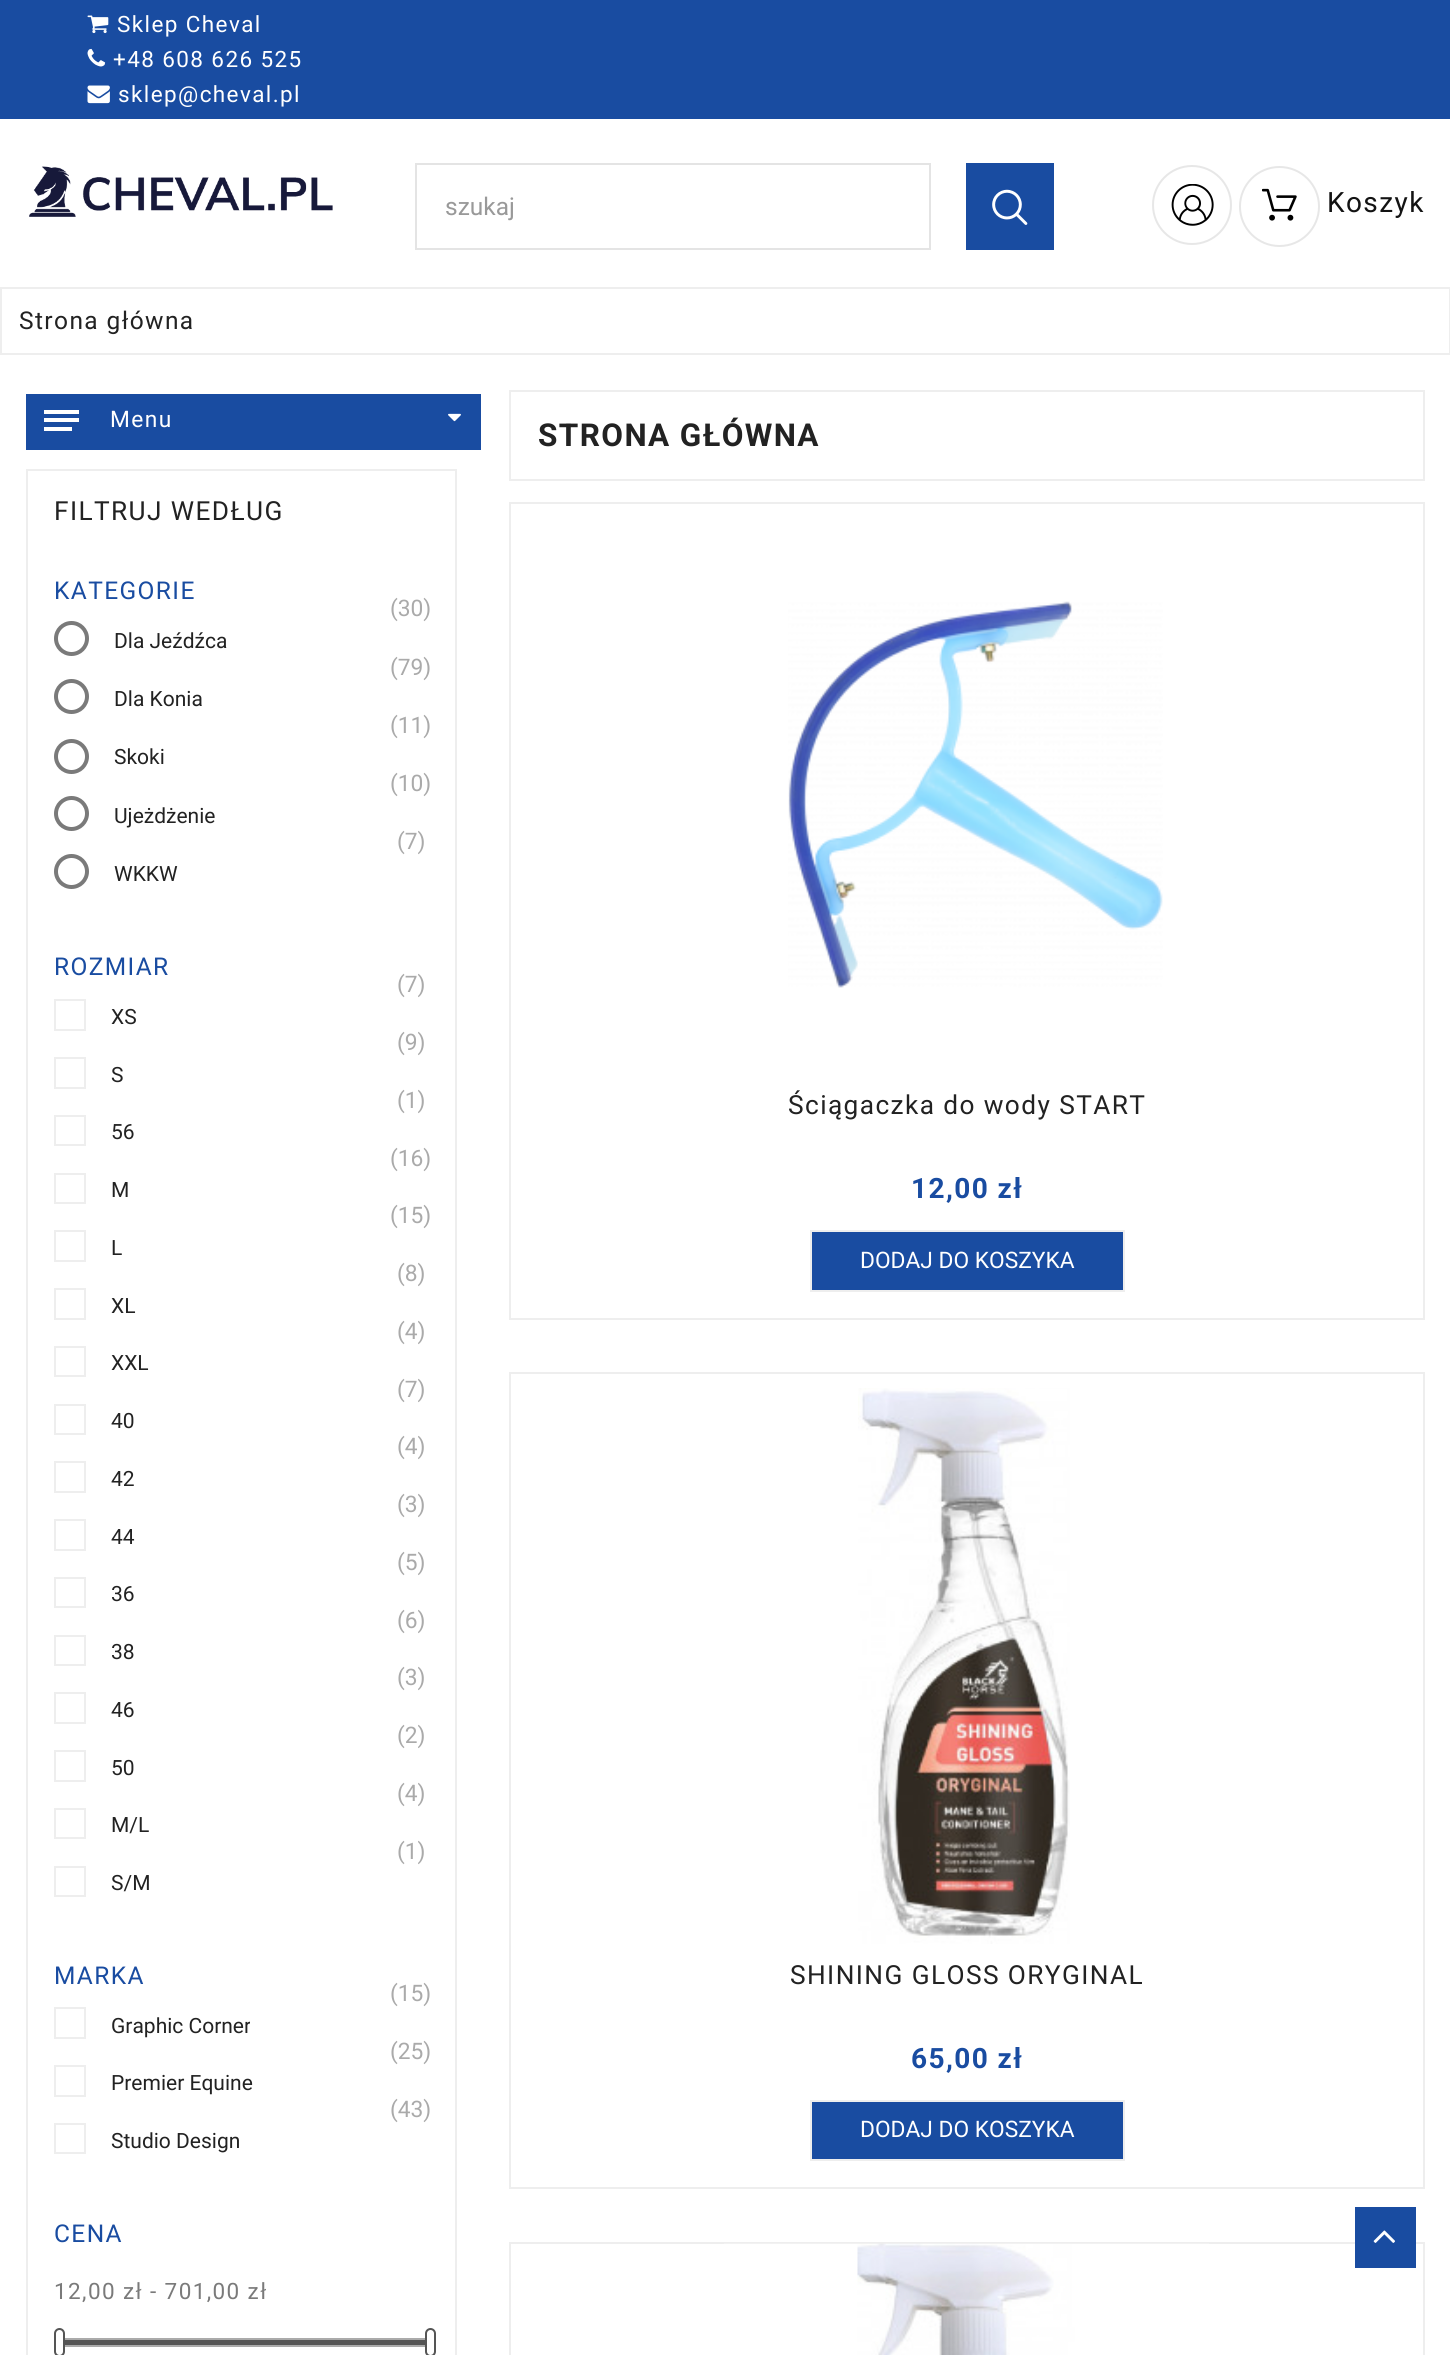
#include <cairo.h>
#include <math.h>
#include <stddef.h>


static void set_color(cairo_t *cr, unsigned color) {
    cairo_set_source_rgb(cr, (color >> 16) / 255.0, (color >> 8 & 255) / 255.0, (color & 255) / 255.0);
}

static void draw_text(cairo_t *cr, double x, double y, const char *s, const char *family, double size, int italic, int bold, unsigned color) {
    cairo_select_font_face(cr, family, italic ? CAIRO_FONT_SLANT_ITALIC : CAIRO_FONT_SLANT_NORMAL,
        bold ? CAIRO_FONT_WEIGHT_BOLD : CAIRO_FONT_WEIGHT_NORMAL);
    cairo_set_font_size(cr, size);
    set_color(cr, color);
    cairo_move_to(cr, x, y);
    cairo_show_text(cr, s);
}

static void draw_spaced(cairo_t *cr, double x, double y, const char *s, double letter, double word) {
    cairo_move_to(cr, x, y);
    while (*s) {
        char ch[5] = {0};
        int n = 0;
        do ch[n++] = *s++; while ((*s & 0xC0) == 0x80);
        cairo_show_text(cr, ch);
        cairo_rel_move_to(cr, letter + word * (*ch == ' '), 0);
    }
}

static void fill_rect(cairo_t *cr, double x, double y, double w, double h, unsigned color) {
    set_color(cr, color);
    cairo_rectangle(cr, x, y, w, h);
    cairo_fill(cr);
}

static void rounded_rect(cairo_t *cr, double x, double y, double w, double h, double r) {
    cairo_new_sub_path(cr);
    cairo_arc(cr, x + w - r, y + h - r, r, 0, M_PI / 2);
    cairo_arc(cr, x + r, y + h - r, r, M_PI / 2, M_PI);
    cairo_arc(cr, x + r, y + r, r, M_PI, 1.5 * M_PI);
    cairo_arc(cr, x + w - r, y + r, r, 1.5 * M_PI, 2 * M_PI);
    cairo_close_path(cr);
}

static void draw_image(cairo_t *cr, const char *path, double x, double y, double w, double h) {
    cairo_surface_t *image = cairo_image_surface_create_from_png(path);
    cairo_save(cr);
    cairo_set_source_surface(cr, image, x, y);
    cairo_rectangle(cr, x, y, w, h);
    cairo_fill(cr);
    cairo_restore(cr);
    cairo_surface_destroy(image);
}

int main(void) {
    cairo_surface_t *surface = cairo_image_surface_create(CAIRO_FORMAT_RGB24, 1450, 2355);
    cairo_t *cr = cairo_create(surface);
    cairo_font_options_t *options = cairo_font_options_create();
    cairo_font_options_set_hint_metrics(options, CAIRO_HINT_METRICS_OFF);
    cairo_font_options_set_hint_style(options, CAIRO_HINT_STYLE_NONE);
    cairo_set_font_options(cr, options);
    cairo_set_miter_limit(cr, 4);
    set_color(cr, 0xFFFFFF);
    cairo_paint(cr);
    fill_rect(cr, 0, 0, 1450, 119, 0x194CA1);
    draw_image(cr, "assets/img1.png", 87, 15, 22, 19);
    cairo_select_font_face(cr, "Roboto", CAIRO_FONT_SLANT_NORMAL, CAIRO_FONT_WEIGHT_NORMAL);
    cairo_set_font_size(cr, 22.5);
    set_color(cr, 0xFFFFFF);
    draw_spaced(cr, 117, 32, "Sklep Cheval", 1.4, 0);
    draw_image(cr, "assets/img2.png", 87, 48, 19, 19);
    draw_spaced(cr, 113, 67, "+48 608 626 525", 1.4, 0);
    draw_image(cr, "assets/img3.png", 87, 85, 23, 19);
    draw_spaced(cr, 118, 102, "sklep@cheval.pl", 1.4, 0);
    draw_image(cr, "assets/img4.png", 29, 166, 304, 51);
    cairo_rectangle(cr, 416, 164, 514, 85);
    set_color(cr, 0xE4E4E4);
    cairo_stroke(cr);
    draw_text(cr, 445, 215, "szukaj", "Roboto", 24.5, 0, 0, 0x999999);
    fill_rect(cr, 966, 163, 88, 87, 0x194CA1);
    draw_image(cr, "assets/img5.png", 992, 189, 36, 36);
    cairo_arc(cr, 1192, 205, 39, 0, 2 * M_PI);
    set_color(cr, 0xE7E7E7);
    cairo_stroke(cr);
    draw_image(cr, "assets/img6.png", 1171, 184, 43, 42);
    cairo_arc(cr, 1279.5, 206.5, 39.5, 0, 2 * M_PI);
    cairo_stroke(cr);
    draw_image(cr, "assets/img7.png", 1262, 188, 35, 33);
    cairo_set_font_size(cr, 28);
    set_color(cr, 0x131313);
    draw_spaced(cr, 1327, 212, "Koszyk", 1.4, 0);
    fill_rect(cr, 26, 394, 455, 56, 0x194CA1);
    fill_rect(cr, 44, 410, 35, 4, 0xFFFFFF);
    fill_rect(cr, 44, 418, 35, 4, 0xFFFFFF);
    fill_rect(cr, 44, 427, 28, 4, 0xFFFFFF);
    cairo_set_font_size(cr, 22.75);
    draw_spaced(cr, 110, 427, "Menu", 1.4, 0);
    draw_image(cr, "assets/img8.png", 448, 413, 13, 9);
    cairo_rectangle(cr, 1, 288, 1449, 66);
    set_color(cr, 0xEEEEEE);
    cairo_stroke(cr);
    cairo_set_font_size(cr, 24.5);
    set_color(cr, 0x222222);
    draw_spaced(cr, 19, 329, "Strona główna", 1.4, 0);
    cairo_rectangle(cr, 27, 470, 429, 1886);
    set_color(cr, 0xEEEEEE);
    cairo_stroke(cr);
    cairo_set_font_size(cr, 26.25);
    set_color(cr, 0x222222);
    draw_spaced(cr, 54, 520, "FILTRUJ WEDŁUG", 1.4, 0);
    cairo_set_font_size(cr, 24.5);
    set_color(cr, 0x194CA1);
    draw_spaced(cr, 54, 599, "KATEGORIE", 1.4, 0);
    cairo_new_path(cr);
    cairo_arc(cr, 71.5, 638.5, 15.5, 0, 2 * M_PI);
    set_color(cr, 0x7A7A7A);
    cairo_set_line_width(cr, 4);
    cairo_stroke(cr);
    draw_text(cr, 390, 616, "(30)", "Roboto", 22.75, 0, 0, 0xAAAAAA);
    draw_text(cr, 114, 648, "Dla Jeźdźca", "Roboto", 21, 0, 0, 0x222222);
    cairo_new_path(cr);
    cairo_arc(cr, 71.5, 696.5, 15.5, 0, 2 * M_PI);
    set_color(cr, 0x7A7A7A);
    cairo_stroke(cr);
    draw_text(cr, 390, 675, "(79)", "Roboto", 22.75, 0, 0, 0xAAAAAA);
    draw_text(cr, 114, 706, "Dla Konia", "Roboto", 21, 0, 0, 0x222222);
    cairo_new_path(cr);
    cairo_arc(cr, 71.5, 756.5, 15.5, 0, 2 * M_PI);
    set_color(cr, 0x7A7A7A);
    cairo_stroke(cr);
    draw_text(cr, 390, 733, "(11)", "Roboto", 22.75, 0, 0, 0xAAAAAA);
    draw_text(cr, 114, 764, "Skoki", "Roboto", 21, 0, 0, 0x222222);
    cairo_new_path(cr);
    cairo_arc(cr, 71.5, 813.5, 15.5, 0, 2 * M_PI);
    set_color(cr, 0x7A7A7A);
    cairo_stroke(cr);
    draw_text(cr, 390, 791, "(10)", "Roboto", 22.75, 0, 0, 0xAAAAAA);
    draw_text(cr, 114, 823, "Ujeżdżenie", "Roboto", 21, 0, 0, 0x222222);
    cairo_new_path(cr);
    cairo_arc(cr, 71.5, 871.5, 15.5, 0, 2 * M_PI);
    set_color(cr, 0x7A7A7A);
    cairo_stroke(cr);
    draw_text(cr, 397, 849, "(7)", "Roboto", 22.75, 0, 0, 0xAAAAAA);
    draw_text(cr, 114, 881, "WKKW", "Roboto", 21, 0, 0, 0x222222);
    cairo_set_font_size(cr, 24.5);
    set_color(cr, 0x194CA1);
    draw_spaced(cr, 54, 975, "ROZMIAR", 1.4, 0);
    cairo_rectangle(cr, 55, 1000, 30, 30);
    set_color(cr, 0xEEEEEE);
    cairo_set_line_width(cr, 2);
    cairo_stroke(cr);
    draw_text(cr, 397, 992, "(7)", "Roboto", 22.75, 0, 0, 0xAAAAAA);
    draw_text(cr, 111, 1024, "XS", "Roboto", 21, 0, 0, 0x222222);
    cairo_rectangle(cr, 55, 1058, 30, 30);
    set_color(cr, 0xEEEEEE);
    cairo_stroke(cr);
    draw_text(cr, 397, 1050, "(9)", "Roboto", 22.75, 0, 0, 0xAAAAAA);
    draw_text(cr, 111, 1082, "S", "Roboto", 21, 0, 0, 0x222222);
    cairo_rectangle(cr, 55, 1116, 30, 29);
    set_color(cr, 0xEEEEEE);
    cairo_stroke(cr);
    draw_text(cr, 397, 1108, "(1)", "Roboto", 22.75, 0, 0, 0xAAAAAA);
    draw_text(cr, 111, 1139, "56", "Roboto", 21, 0, 0, 0x222222);
    cairo_rectangle(cr, 55, 1174, 30, 29);
    set_color(cr, 0xEEEEEE);
    cairo_stroke(cr);
    draw_text(cr, 390, 1166, "(16)", "Roboto", 22.75, 0, 0, 0xAAAAAA);
    draw_text(cr, 111, 1197, "M", "Roboto", 21, 0, 0, 0x222222);
    cairo_rectangle(cr, 55, 1231, 30, 30);
    set_color(cr, 0xEEEEEE);
    cairo_stroke(cr);
    draw_text(cr, 390, 1223, "(15)", "Roboto", 22.75, 0, 0, 0xAAAAAA);
    draw_text(cr, 111, 1255, "L", "Roboto", 21, 0, 0, 0x222222);
    cairo_rectangle(cr, 55, 1289, 30, 30);
    set_color(cr, 0xEEEEEE);
    cairo_stroke(cr);
    draw_text(cr, 397, 1281, "(8)", "Roboto", 22.75, 0, 0, 0xAAAAAA);
    draw_text(cr, 111, 1313, "XL", "Roboto", 21, 0, 0, 0x222222);
    cairo_rectangle(cr, 55, 1347, 30, 29);
    set_color(cr, 0xEEEEEE);
    cairo_stroke(cr);
    draw_text(cr, 397, 1339, "(4)", "Roboto", 22.75, 0, 0, 0xAAAAAA);
    draw_text(cr, 111, 1370, "XXL", "Roboto", 21, 0, 0, 0x222222);
    cairo_rectangle(cr, 55, 1405, 30, 29);
    set_color(cr, 0xEEEEEE);
    cairo_stroke(cr);
    draw_text(cr, 397, 1397, "(7)", "Roboto", 22.75, 0, 0, 0xAAAAAA);
    draw_text(cr, 111, 1428, "40", "Roboto", 21, 0, 0, 0x222222);
    cairo_rectangle(cr, 55, 1462, 30, 30);
    set_color(cr, 0xEEEEEE);
    cairo_stroke(cr);
    draw_text(cr, 397, 1454, "(4)", "Roboto", 22.75, 0, 0, 0xAAAAAA);
    draw_text(cr, 111, 1486, "42", "Roboto", 21, 0, 0, 0x222222);
    cairo_rectangle(cr, 55, 1520, 30, 30);
    set_color(cr, 0xEEEEEE);
    cairo_stroke(cr);
    draw_text(cr, 397, 1512, "(3)", "Roboto", 22.75, 0, 0, 0xAAAAAA);
    draw_text(cr, 111, 1544, "44", "Roboto", 21, 0, 0, 0x222222);
    cairo_rectangle(cr, 55, 1578, 30, 29);
    set_color(cr, 0xEEEEEE);
    cairo_stroke(cr);
    draw_text(cr, 397, 1570, "(5)", "Roboto", 22.75, 0, 0, 0xAAAAAA);
    draw_text(cr, 111, 1601, "36", "Roboto", 21, 0, 0, 0x222222);
    cairo_rectangle(cr, 55, 1636, 30, 29);
    set_color(cr, 0xEEEEEE);
    cairo_stroke(cr);
    draw_text(cr, 397, 1628, "(6)", "Roboto", 22.75, 0, 0, 0xAAAAAA);
    draw_text(cr, 111, 1659, "38", "Roboto", 21, 0, 0, 0x222222);
    cairo_rectangle(cr, 55, 1693, 30, 30);
    set_color(cr, 0xEEEEEE);
    cairo_stroke(cr);
    draw_text(cr, 397, 1685, "(3)", "Roboto", 22.75, 0, 0, 0xAAAAAA);
    draw_text(cr, 111, 1717, "46", "Roboto", 21, 0, 0, 0x222222);
    cairo_rectangle(cr, 55, 1751, 30, 30);
    set_color(cr, 0xEEEEEE);
    cairo_stroke(cr);
    draw_text(cr, 397, 1743, "(2)", "Roboto", 22.75, 0, 0, 0xAAAAAA);
    draw_text(cr, 111, 1775, "50", "Roboto", 21, 0, 0, 0x222222);
    cairo_rectangle(cr, 55, 1809, 30, 29);
    set_color(cr, 0xEEEEEE);
    cairo_stroke(cr);
    draw_text(cr, 397, 1801, "(4)", "Roboto", 22.75, 0, 0, 0xAAAAAA);
    draw_text(cr, 111, 1832, "M/L", "Roboto", 21, 0, 0, 0x222222);
    cairo_rectangle(cr, 55, 1867, 30, 29);
    set_color(cr, 0xEEEEEE);
    cairo_stroke(cr);
    draw_text(cr, 397, 1859, "(1)", "Roboto", 22.75, 0, 0, 0xAAAAAA);
    draw_text(cr, 111, 1890, "S/M", "Roboto", 21, 0, 0, 0x222222);
    cairo_set_font_size(cr, 24.5);
    set_color(cr, 0x194CA1);
    draw_spaced(cr, 54, 1984, "MARKA", 1.4, 0);
    cairo_rectangle(cr, 55, 2008, 30, 30);
    set_color(cr, 0xEEEEEE);
    cairo_stroke(cr);
    draw_text(cr, 390, 2001, "(15)", "Roboto", 22.75, 0, 0, 0xAAAAAA);
    cairo_save(cr);
    cairo_rectangle(cr, 110, 2007, 140, 35);
    cairo_clip(cr);
    draw_text(cr, 111, 2033, "Graphic Corner", "Roboto", 21, 0, 0, 0x222222);
    cairo_restore(cr);
    cairo_rectangle(cr, 55, 2066, 30, 30);
    set_color(cr, 0xEEEEEE);
    cairo_stroke(cr);
    draw_text(cr, 390, 2059, "(25)", "Roboto", 22.75, 0, 0, 0xAAAAAA);
    draw_text(cr, 111, 2090, "Premier Equine", "Roboto", 21, 0, 0, 0x222222);
    cairo_rectangle(cr, 55, 2124, 30, 29);
    set_color(cr, 0xEEEEEE);
    cairo_stroke(cr);
    draw_text(cr, 390, 2117, "(43)", "Roboto", 22.75, 0, 0, 0xAAAAAA);
    draw_text(cr, 111, 2148, "Studio Design", "Roboto", 21, 0, 0, 0x222222);
    cairo_set_font_size(cr, 24.5);
    set_color(cr, 0x194CA1);
    draw_spaced(cr, 54, 2242, "CENA", 1.4, 0);
    cairo_set_font_size(cr, 22.5);
    set_color(cr, 0x7A7A7A);
    draw_spaced(cr, 54, 2299, "12,00 zł - 701,00 zł", 1.4, 0);
    cairo_rectangle(cr, 55, 2339, 373, 7);
    set_color(cr, 0xAAAAAA);
    cairo_stroke(cr);
    set_color(cr, 0xFFFFFF);
    rounded_rect(cr, 55, 2329, 9, 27, 4.5);
    cairo_fill_preserve(cr);
    set_color(cr, 0x555555);
    cairo_stroke(cr);
    fill_rect(cr, 65, 2340, 362, 5, 0x555555);
    set_color(cr, 0xFFFFFF);
    rounded_rect(cr, 426, 2329, 9, 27, 4.5);
    cairo_fill_preserve(cr);
    set_color(cr, 0x555555);
    cairo_stroke(cr);
    cairo_rectangle(cr, 510, 391, 914, 89);
    set_color(cr, 0xEEEEEE);
    cairo_stroke(cr);
    cairo_select_font_face(cr, "Roboto", CAIRO_FONT_SLANT_NORMAL, CAIRO_FONT_WEIGHT_BOLD);
    cairo_set_font_size(cr, 31.5);
    set_color(cr, 0x222222);
    draw_spaced(cr, 538, 446, "STRONA GŁÓWNA", 1.4, 0);
    cairo_rectangle(cr, 510, 503, 914, 816);
    set_color(cr, 0xEEEEEE);
    cairo_stroke(cr);
    draw_image(cr, "assets/img9.png", 788, 601, 375, 387);
    cairo_select_font_face(cr, "Roboto", CAIRO_FONT_SLANT_NORMAL, CAIRO_FONT_WEIGHT_NORMAL);
    cairo_set_font_size(cr, 26.25);
    set_color(cr, 0x222222);
    draw_spaced(cr, 788, 1114, "Ściągaczka do wody START", 1.4, 0);
    cairo_select_font_face(cr, "Roboto", CAIRO_FONT_SLANT_NORMAL, CAIRO_FONT_WEIGHT_BOLD);
    cairo_set_font_size(cr, 28);
    set_color(cr, 0x194CA1);
    draw_spaced(cr, 911, 1198, "12,00 zł", 1.4, 0);
    cairo_rectangle(cr, 811, 1231, 313, 60);
    cairo_fill_preserve(cr);
    set_color(cr, 0xEEEEEE);
    cairo_stroke(cr);
    draw_text(cr, 860, 1268, "DODAJ DO KOSZYKA", "Roboto", 22.75, 0, 0, 0xFFFFFF);
    cairo_rectangle(cr, 510, 1373, 914, 815);
    set_color(cr, 0xEEEEEE);
    cairo_stroke(cr);
    draw_image(cr, "assets/img10.png", 858, 1388, 212, 556);
    cairo_set_font_size(cr, 26.25);
    set_color(cr, 0x222222);
    draw_spaced(cr, 790, 1984, "SHINING GLOSS ORYGINAL", 1.4, 0);
    cairo_select_font_face(cr, "Roboto", CAIRO_FONT_SLANT_NORMAL, CAIRO_FONT_WEIGHT_BOLD);
    cairo_set_font_size(cr, 28);
    set_color(cr, 0x194CA1);
    draw_spaced(cr, 911, 2068, "65,00 zł", 1.4, 0);
    cairo_rectangle(cr, 811, 2101, 313, 59);
    cairo_fill_preserve(cr);
    set_color(cr, 0xEEEEEE);
    cairo_stroke(cr);
    draw_text(cr, 860, 2137, "DODAJ DO KOSZYKA", "Roboto", 22.75, 0, 0, 0xFFFFFF);
    cairo_rectangle(cr, 510, 2243, 914, 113);
    set_color(cr, 0xEEEEEE);
    cairo_stroke(cr);
    draw_image(cr, "assets/img11.png", 724, 2243, 485, 112);
    fill_rect(cr, 1355, 2207, 61, 61, 0x194CA1);
    draw_image(cr, "assets/img12.png", 1373, 2230, 22, 13);
    cairo_surface_write_to_png(surface, "output.png");
    cairo_font_options_destroy(options);
    cairo_destroy(cr);
    cairo_surface_destroy(surface);
    return 0;
}
